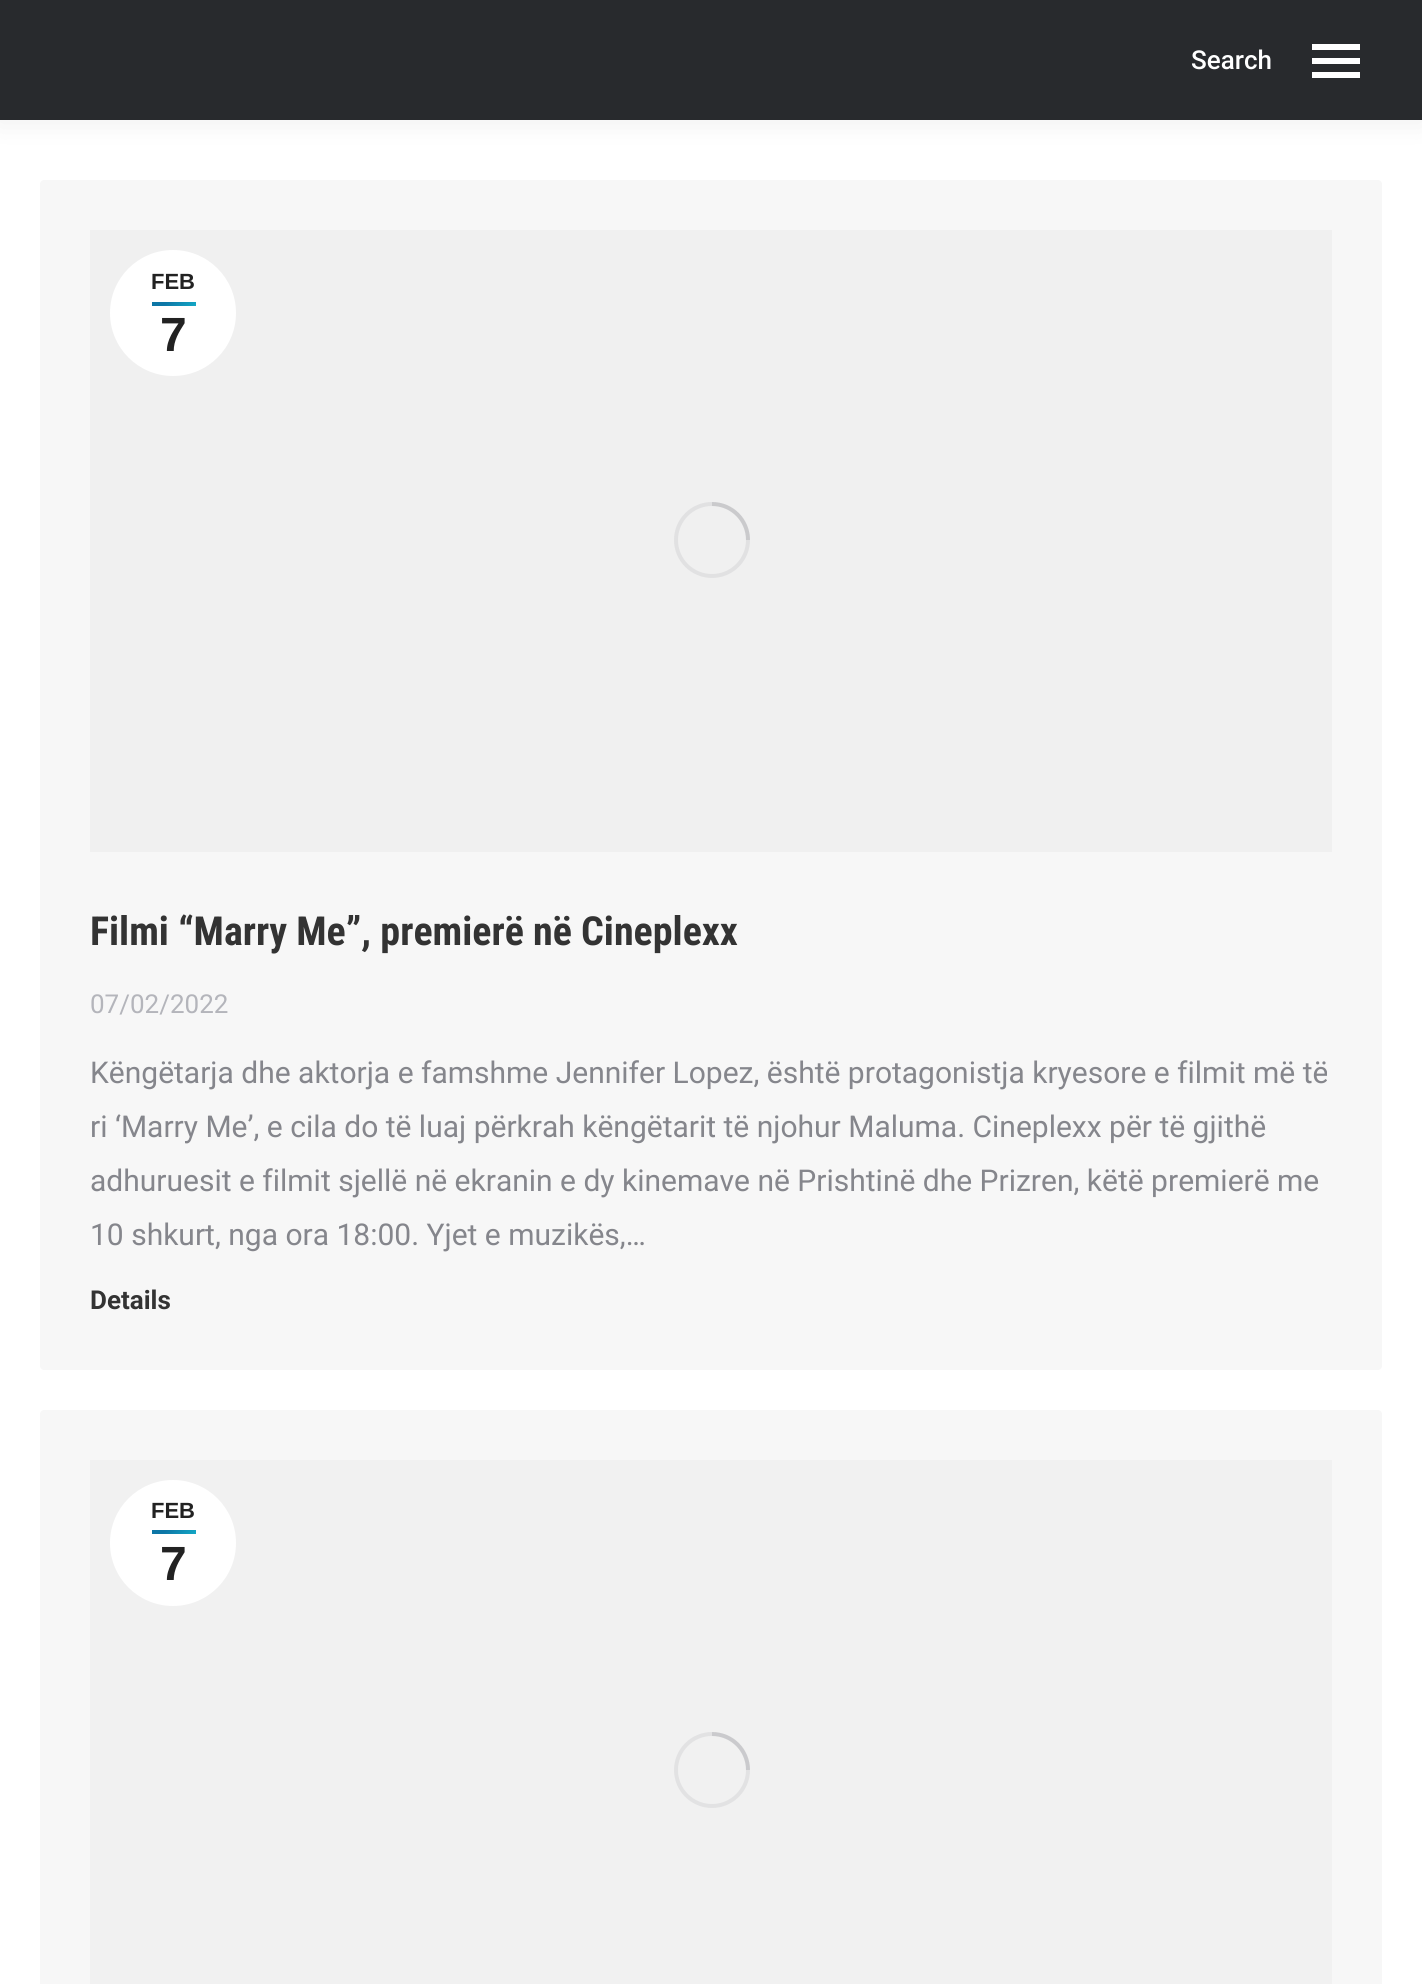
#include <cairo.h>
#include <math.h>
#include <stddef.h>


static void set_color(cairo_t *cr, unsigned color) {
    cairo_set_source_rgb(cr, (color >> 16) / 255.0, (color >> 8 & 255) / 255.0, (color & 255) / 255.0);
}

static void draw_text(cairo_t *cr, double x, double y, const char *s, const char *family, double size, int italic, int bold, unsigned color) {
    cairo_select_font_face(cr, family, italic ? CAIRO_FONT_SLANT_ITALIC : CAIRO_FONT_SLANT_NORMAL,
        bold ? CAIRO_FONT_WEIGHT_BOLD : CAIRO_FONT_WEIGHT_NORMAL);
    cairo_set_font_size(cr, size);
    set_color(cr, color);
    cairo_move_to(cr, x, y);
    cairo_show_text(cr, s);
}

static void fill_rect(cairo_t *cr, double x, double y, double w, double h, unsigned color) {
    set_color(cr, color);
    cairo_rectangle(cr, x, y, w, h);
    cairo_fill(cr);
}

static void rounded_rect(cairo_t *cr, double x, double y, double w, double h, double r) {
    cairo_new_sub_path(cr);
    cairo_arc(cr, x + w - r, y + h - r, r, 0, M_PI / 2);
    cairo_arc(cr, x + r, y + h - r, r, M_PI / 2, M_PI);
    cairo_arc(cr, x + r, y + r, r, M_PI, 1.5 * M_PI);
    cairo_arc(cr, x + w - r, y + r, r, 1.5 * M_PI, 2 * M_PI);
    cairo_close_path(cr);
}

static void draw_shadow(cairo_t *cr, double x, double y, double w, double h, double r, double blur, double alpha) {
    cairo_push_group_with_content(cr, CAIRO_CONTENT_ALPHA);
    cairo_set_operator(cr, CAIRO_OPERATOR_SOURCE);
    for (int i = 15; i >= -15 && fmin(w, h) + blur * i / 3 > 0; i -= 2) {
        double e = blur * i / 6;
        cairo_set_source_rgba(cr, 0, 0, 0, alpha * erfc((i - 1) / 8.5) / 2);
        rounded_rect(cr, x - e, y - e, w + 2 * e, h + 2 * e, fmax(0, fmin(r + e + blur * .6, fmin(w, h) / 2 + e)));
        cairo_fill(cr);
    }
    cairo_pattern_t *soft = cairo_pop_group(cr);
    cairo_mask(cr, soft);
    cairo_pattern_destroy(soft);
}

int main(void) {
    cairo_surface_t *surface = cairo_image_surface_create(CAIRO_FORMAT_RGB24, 1422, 1984);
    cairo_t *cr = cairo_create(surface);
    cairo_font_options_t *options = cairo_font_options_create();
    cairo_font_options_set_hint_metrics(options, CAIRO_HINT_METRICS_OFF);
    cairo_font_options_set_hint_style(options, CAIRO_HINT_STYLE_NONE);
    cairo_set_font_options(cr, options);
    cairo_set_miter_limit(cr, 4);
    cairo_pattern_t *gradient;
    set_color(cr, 0xFFFFFF);
    cairo_paint(cr);
    set_color(cr, 0x000000);
    draw_shadow(cr, -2, -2, 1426, 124, 0, 15, 0.07);
    fill_rect(cr, 0, 0, 1422, 120, 0x282A2D);
    draw_text(cr, 1191, 69, "Search", "Roboto Medium", 26, 0, 0, 0xFFFFFF);
    fill_rect(cr, 1312, 44, 48, 6, 0xFFFFFF);
    fill_rect(cr, 1312, 58, 48, 6, 0xFFFFFF);
    fill_rect(cr, 1312, 72, 48, 6, 0xFFFFFF);
    set_color(cr, 0xF7F7F7);
    rounded_rect(cr, 40, 180, 1342, 1190, 4);
    cairo_fill(cr);
    fill_rect(cr, 90, 230, 1242, 622, 0xF0F0F0);
    cairo_arc(cr, 712, 540, 36, 0, 2 * M_PI);
    set_color(cr, 0xE1E1E2);
    cairo_set_line_width(cr, 4);
    cairo_stroke(cr);
    cairo_new_path(cr);
    cairo_move_to(cr, 748, 540);
    cairo_curve_to(cr, 748, 520, 732, 504, 712, 504);
    cairo_set_source_rgba(cr, 0.522, 0.525, 0.549, 0.25);
    cairo_stroke(cr);
    set_color(cr, 0xFFFFFF);
    cairo_arc(cr, 173, 313, 63, 0, 2 * M_PI);
    cairo_fill(cr);
    draw_text(cr, 151, 289, "FEB", "Liberation Sans", 22, 0, 1, 0x222222);
    gradient = cairo_pattern_create_linear(162, 292, 186, 316);
    cairo_pattern_add_color_stop_rgba(gradient, 0.3, 0.051, 0.463, 0.651, 1);
    cairo_pattern_add_color_stop_rgba(gradient, 1, 0.075, 0.659, 0.776, 1);
    cairo_set_source(cr, gradient);
    cairo_pattern_destroy(gradient);
    cairo_rectangle(cr, 152, 302, 44, 4);
    cairo_fill(cr);
    draw_text(cr, 160, 351, "7", "Liberation Sans", 48, 0, 1, 0x222222);
    draw_text(cr, 90, 945, "Filmi “Marry Me”, premierë në Cineplexx", "Roboto Condensed", 40, 0, 1, 0x333333);
    draw_text(cr, 90, 1013, "07/02/2022", "Roboto", 26, 0, 0, 0xB4B5BB);
    draw_text(cr, 90, 1083, "Këngëtarja dhe aktorja e famshme Jennifer Lopez, është protagonistja kryesore e filmit më të", "Roboto", 30, 0, 0, 0x85868C);
    draw_text(cr, 90, 1137, "ri ‘Marry Me’, e cila do të luaj përkrah këngëtarit të njohur Maluma. Cineplexx për të gjithë", "Roboto", 30, 0, 0, 0x85868C);
    draw_text(cr, 90, 1191, "adhuruesit e filmit sjellë në ekranin e dy kinemave në Prishtinë dhe Prizren, këtë premierë me", "Roboto", 30, 0, 0, 0x85868C);
    draw_text(cr, 90, 1245, "10 shkurt, nga ora 18:00. Yjet e muzikës,…", "Roboto", 30, 0, 0, 0x85868C);
    draw_text(cr, 90, 1309, "Details", "Roboto", 26, 0, 1, 0x333333);
    set_color(cr, 0xF7F7F7);
    rounded_rect(cr, 40, 1410, 1342, 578, 4);
    cairo_fill(cr);
    fill_rect(cr, 90, 1460, 1242, 524, 0xF1F1F1);
    cairo_arc(cr, 712, 1770, 36, 0, 2 * M_PI);
    set_color(cr, 0xE2E2E3);
    cairo_stroke(cr);
    cairo_new_path(cr);
    cairo_move_to(cr, 748, 1770);
    cairo_curve_to(cr, 748, 1750, 732, 1734, 712, 1734);
    cairo_set_source_rgba(cr, 0.522, 0.525, 0.549, 0.25);
    cairo_stroke(cr);
    set_color(cr, 0xFFFFFF);
    cairo_arc(cr, 173, 1543, 63, 0, 2 * M_PI);
    cairo_fill(cr);
    draw_text(cr, 151, 1518, "FEB", "Liberation Sans", 22, 0, 1, 0x222222);
    gradient = cairo_pattern_create_linear(162, 1520, 186, 1544);
    cairo_pattern_add_color_stop_rgba(gradient, 0.3, 0.051, 0.463, 0.651, 1);
    cairo_pattern_add_color_stop_rgba(gradient, 1, 0.075, 0.659, 0.776, 1);
    cairo_set_source(cr, gradient);
    cairo_pattern_destroy(gradient);
    cairo_rectangle(cr, 152, 1530, 44, 4);
    cairo_fill(cr);
    draw_text(cr, 160, 1580, "7", "Liberation Sans", 48, 0, 1, 0x222222);
    cairo_surface_write_to_png(surface, "output.png");
    cairo_font_options_destroy(options);
    cairo_destroy(cr);
    cairo_surface_destroy(surface);
    return 0;
}
